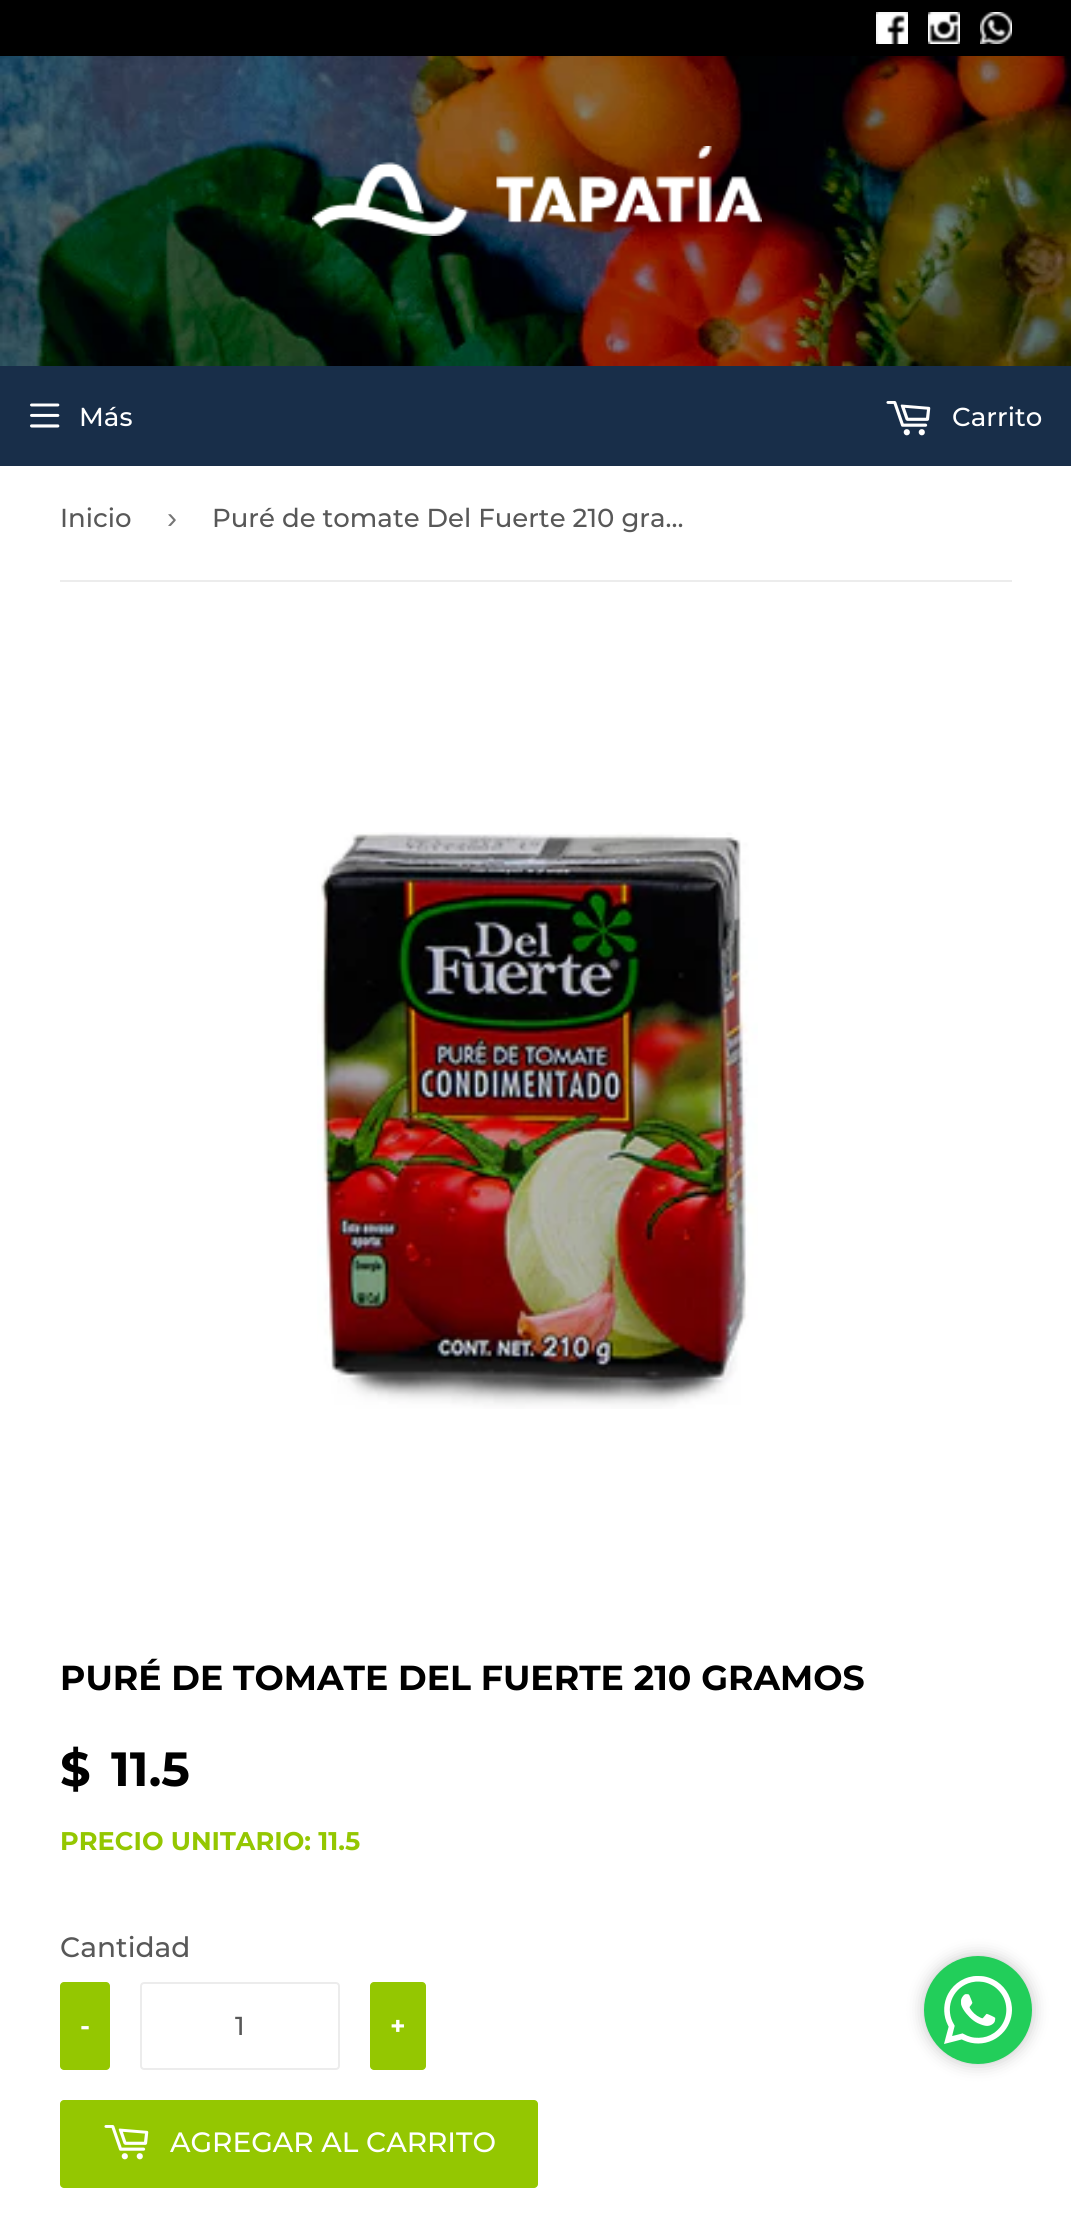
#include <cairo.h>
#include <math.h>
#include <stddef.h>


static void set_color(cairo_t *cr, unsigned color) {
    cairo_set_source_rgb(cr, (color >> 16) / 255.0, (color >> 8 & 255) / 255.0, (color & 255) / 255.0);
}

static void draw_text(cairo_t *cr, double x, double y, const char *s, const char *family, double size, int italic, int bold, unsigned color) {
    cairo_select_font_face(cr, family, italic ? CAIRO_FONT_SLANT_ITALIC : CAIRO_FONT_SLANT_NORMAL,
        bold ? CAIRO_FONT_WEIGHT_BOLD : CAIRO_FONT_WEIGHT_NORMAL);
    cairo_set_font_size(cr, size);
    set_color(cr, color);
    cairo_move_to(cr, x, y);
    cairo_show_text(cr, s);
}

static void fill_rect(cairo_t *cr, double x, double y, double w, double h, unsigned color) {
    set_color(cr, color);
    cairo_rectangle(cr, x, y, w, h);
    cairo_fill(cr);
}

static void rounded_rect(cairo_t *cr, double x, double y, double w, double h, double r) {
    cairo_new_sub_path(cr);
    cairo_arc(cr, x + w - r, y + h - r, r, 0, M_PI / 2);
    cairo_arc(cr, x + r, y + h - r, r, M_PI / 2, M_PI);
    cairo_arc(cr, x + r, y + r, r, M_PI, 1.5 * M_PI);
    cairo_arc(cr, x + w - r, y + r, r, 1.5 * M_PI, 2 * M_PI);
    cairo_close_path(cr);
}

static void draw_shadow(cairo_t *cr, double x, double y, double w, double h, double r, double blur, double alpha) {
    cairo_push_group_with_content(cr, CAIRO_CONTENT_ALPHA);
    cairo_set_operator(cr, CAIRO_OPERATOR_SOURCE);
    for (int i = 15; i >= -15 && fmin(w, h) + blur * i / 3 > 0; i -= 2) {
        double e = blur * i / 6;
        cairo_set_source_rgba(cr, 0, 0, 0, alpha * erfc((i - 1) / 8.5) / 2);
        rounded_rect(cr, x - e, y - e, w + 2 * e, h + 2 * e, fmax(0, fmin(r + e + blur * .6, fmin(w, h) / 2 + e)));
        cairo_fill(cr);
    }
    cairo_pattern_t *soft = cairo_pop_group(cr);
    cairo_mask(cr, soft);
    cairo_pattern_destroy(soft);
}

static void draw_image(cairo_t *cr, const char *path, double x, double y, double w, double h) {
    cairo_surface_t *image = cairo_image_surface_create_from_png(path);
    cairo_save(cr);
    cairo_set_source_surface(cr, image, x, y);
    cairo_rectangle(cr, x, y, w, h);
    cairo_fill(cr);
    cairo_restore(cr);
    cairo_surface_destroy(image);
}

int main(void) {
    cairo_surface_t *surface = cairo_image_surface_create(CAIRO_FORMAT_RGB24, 1071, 2224);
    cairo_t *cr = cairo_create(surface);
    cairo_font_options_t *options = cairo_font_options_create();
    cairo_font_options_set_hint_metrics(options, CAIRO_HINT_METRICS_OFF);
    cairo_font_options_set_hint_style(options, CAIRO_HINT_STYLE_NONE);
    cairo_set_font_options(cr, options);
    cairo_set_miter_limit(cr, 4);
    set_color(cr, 0xFFFFFF);
    cairo_paint(cr);
    fill_rect(cr, 0, 0, 1071, 56, 0x000000);
    draw_image(cr, "assets/img1.png", 876, 12, 32, 32);
    draw_image(cr, "assets/img2.png", 928, 12, 32, 32);
    draw_image(cr, "assets/img3.png", 980, 12, 32, 32);
    draw_image(cr, "assets/img4.png", 0, 56, 1071, 310);
    draw_image(cr, "assets/img5.png", 312, 146, 450, 90);
    fill_rect(cr, 0, 366, 1071, 100, 0x182E49);
    draw_image(cr, "assets/img6.png", 30, 403, 30, 25);
    draw_text(cr, 79, 426, "Más", "Montserrat Medium", 26, 0, 0, 0xFFFFFF);
    draw_image(cr, "assets/img7.png", 886, 401, 45, 35);
    draw_text(cr, 952, 426, "Carrito", "Montserrat Medium", 26, 0, 0, 0xFFFFFF);
    fill_rect(cr, 60, 580, 952, 2, 0xECECEC);
    draw_text(cr, 60, 527, "Inicio", "Montserrat Medium", 26, 0, 0, 0x585858);
    draw_text(cr, 167, 528, "›", "Liberation Sans", 30, 0, 0, 0x767676);
    draw_text(cr, 212, 527, "Puré de tomate Del Fuerte 210 gra…", "Montserrat Medium", 26, 0, 0, 0x585858);
    draw_image(cr, "assets/img8.png", 317, 832, 441, 577);
    draw_text(cr, 60, 1690, "PURÉ DE TOMATE DEL FUERTE 210 GRAMOS", "Montserrat", 34.7, 0, 1, 0x000000);
    draw_text(cr, 60, 1786, "$", "Montserrat", 48, 0, 1, 0x000000);
    draw_text(cr, 111, 1786, "11.5", "Montserrat", 48, 0, 1, 0x000000);
    draw_text(cr, 60, 1850, "PRECIO UNITARIO: 11.5", "Montserrat", 25.6, 0, 1, 0x94C701);
    draw_text(cr, 60, 1957, "Cantidad", "Montserrat Medium", 28, 0, 0, 0x585858);
    set_color(cr, 0x94C701);
    rounded_rect(cr, 60, 1982, 50, 88, 4);
    cairo_fill(cr);
    draw_text(cr, 80, 2035, "-", "Montserrat", 26, 0, 1, 0xFFFFFF);
    rounded_rect(cr, 141, 1983, 198, 86, 3);
    set_color(cr, 0xECECEC);
    cairo_stroke(cr);
    draw_text(cr, 235, 2035, "1", "Montserrat Medium", 26, 0, 0, 0x585858);
    set_color(cr, 0x94C701);
    rounded_rect(cr, 370, 1982, 56, 88, 4);
    cairo_fill(cr);
    draw_text(cr, 390, 2035, "+", "Montserrat", 26, 0, 1, 0xFFFFFF);
    set_color(cr, 0x94C701);
    rounded_rect(cr, 60, 2100, 478, 88, 4);
    cairo_fill(cr);
    draw_image(cr, "assets/img9.png", 104, 2125, 45, 35);
    draw_text(cr, 170, 2152, "AGREGAR AL CARRITO", "Montserrat Medium", 28, 0, 0, 0xFFFFFF);
    set_color(cr, 0xC2C2C2);
    draw_shadow(cr, 924, 1956, 108, 108, 54, 8, 1);
    set_color(cr, 0x22CE5A);
    cairo_arc(cr, 978, 2010, 54, 0, 2 * M_PI);
    cairo_fill(cr);
    draw_image(cr, "assets/img10.png", 944, 1976, 68, 68);
    cairo_surface_write_to_png(surface, "output.png");
    cairo_font_options_destroy(options);
    cairo_destroy(cr);
    cairo_surface_destroy(surface);
    return 0;
}
